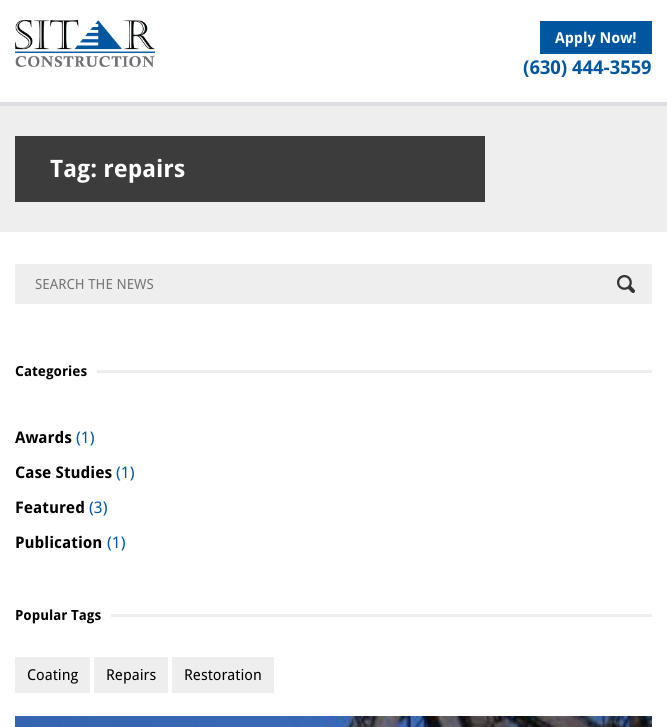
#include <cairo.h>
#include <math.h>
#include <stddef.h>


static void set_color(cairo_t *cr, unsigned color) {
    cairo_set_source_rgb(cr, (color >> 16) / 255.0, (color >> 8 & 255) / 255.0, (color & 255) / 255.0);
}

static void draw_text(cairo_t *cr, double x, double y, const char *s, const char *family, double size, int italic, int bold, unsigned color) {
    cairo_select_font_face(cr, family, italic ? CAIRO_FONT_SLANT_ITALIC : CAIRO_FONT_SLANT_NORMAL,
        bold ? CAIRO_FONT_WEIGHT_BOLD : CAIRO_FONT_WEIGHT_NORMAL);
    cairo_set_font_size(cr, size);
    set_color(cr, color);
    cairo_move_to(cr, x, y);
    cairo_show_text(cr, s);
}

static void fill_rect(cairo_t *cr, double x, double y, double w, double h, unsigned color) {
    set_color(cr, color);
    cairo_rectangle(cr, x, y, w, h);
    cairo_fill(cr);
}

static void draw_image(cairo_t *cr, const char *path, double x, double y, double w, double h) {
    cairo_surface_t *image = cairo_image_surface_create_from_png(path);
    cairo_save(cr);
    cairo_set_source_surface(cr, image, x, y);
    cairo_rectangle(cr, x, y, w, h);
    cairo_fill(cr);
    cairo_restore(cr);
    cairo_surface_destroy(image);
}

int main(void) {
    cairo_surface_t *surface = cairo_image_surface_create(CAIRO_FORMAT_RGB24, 667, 727);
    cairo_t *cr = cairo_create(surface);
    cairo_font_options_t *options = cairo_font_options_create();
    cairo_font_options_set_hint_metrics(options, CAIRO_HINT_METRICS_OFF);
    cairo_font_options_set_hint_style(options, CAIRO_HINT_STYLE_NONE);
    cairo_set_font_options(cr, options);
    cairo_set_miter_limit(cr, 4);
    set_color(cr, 0xFFFFFF);
    cairo_paint(cr);
    fill_rect(cr, 0, 102, 667, 4, 0xDEDFE2);
    draw_image(cr, "assets/img1.png", 15, 20, 140, 47);
    fill_rect(cr, 540, 21, 112, 33, 0x0057A0);
    draw_text(cr, 555, 43, "Apply Now!", "Droid Sans", 15, 0, 1, 0xFFFFFF);
    draw_text(cr, 523, 74, "(630) 444-3559", "Droid Sans", 19, 0, 1, 0x0057A0);
    fill_rect(cr, 0, 106, 667, 126, 0xEEEEEE);
    fill_rect(cr, 15, 136, 470, 66, 0x3C3C3C);
    draw_text(cr, 50, 177, "Tag: repairs", "Droid Sans", 24, 0, 1, 0xFFFFFF);
    fill_rect(cr, 15, 264, 637, 40, 0xEEEEEE);
    draw_text(cr, 35, 289, "SEARCH THE NEWS", "Droid Sans", 14, 0, 0, 0x757575);
    draw_image(cr, "assets/img2.png", 617, 275, 18, 18);
    draw_text(cr, 15, 376, "Categories", "Droid Sans", 14, 0, 1, 0x000000);
    fill_rect(cr, 97, 370, 555, 3, 0xEEEEEE);
    draw_text(cr, 15, 443, "Awards", "Droid Sans", 16, 0, 1, 0x000000);
    draw_text(cr, 76, 443, "(1)", "Droid Sans", 16, 0, 0, 0x0057A0);
    draw_text(cr, 15, 478, "Case Studies", "Droid Sans", 16, 0, 1, 0x000000);
    draw_text(cr, 116, 478, "(1)", "Droid Sans", 16, 0, 0, 0x0057A0);
    draw_text(cr, 15, 513, "Featured", "Droid Sans", 16, 0, 1, 0x000000);
    draw_text(cr, 89, 513, "(3)", "Droid Sans", 16, 0, 0, 0x0057A0);
    draw_text(cr, 15, 548, "Publication", "Droid Sans", 16, 0, 1, 0x000000);
    draw_text(cr, 107, 548, "(1)", "Droid Sans", 16, 0, 0, 0x0057A0);
    draw_text(cr, 15, 620, "Popular Tags", "Droid Sans", 14, 0, 1, 0x000000);
    fill_rect(cr, 111, 614, 541, 3, 0xEEEEEE);
    fill_rect(cr, 15, 657, 75, 36, 0xEEEEEE);
    draw_text(cr, 27, 680, "Coating", "Droid Sans", 15, 0, 0, 0x000000);
    fill_rect(cr, 94, 657, 74, 36, 0xEEEEEE);
    draw_text(cr, 106, 680, "Repairs", "Droid Sans", 15, 0, 0, 0x000000);
    fill_rect(cr, 172, 657, 102, 36, 0xEEEEEE);
    draw_text(cr, 184, 680, "Restoration", "Droid Sans", 15, 0, 0, 0x000000);
    draw_image(cr, "assets/img3.png", 15, 716, 637, 11);
    cairo_surface_write_to_png(surface, "output.png");
    cairo_font_options_destroy(options);
    cairo_destroy(cr);
    cairo_surface_destroy(surface);
    return 0;
}
